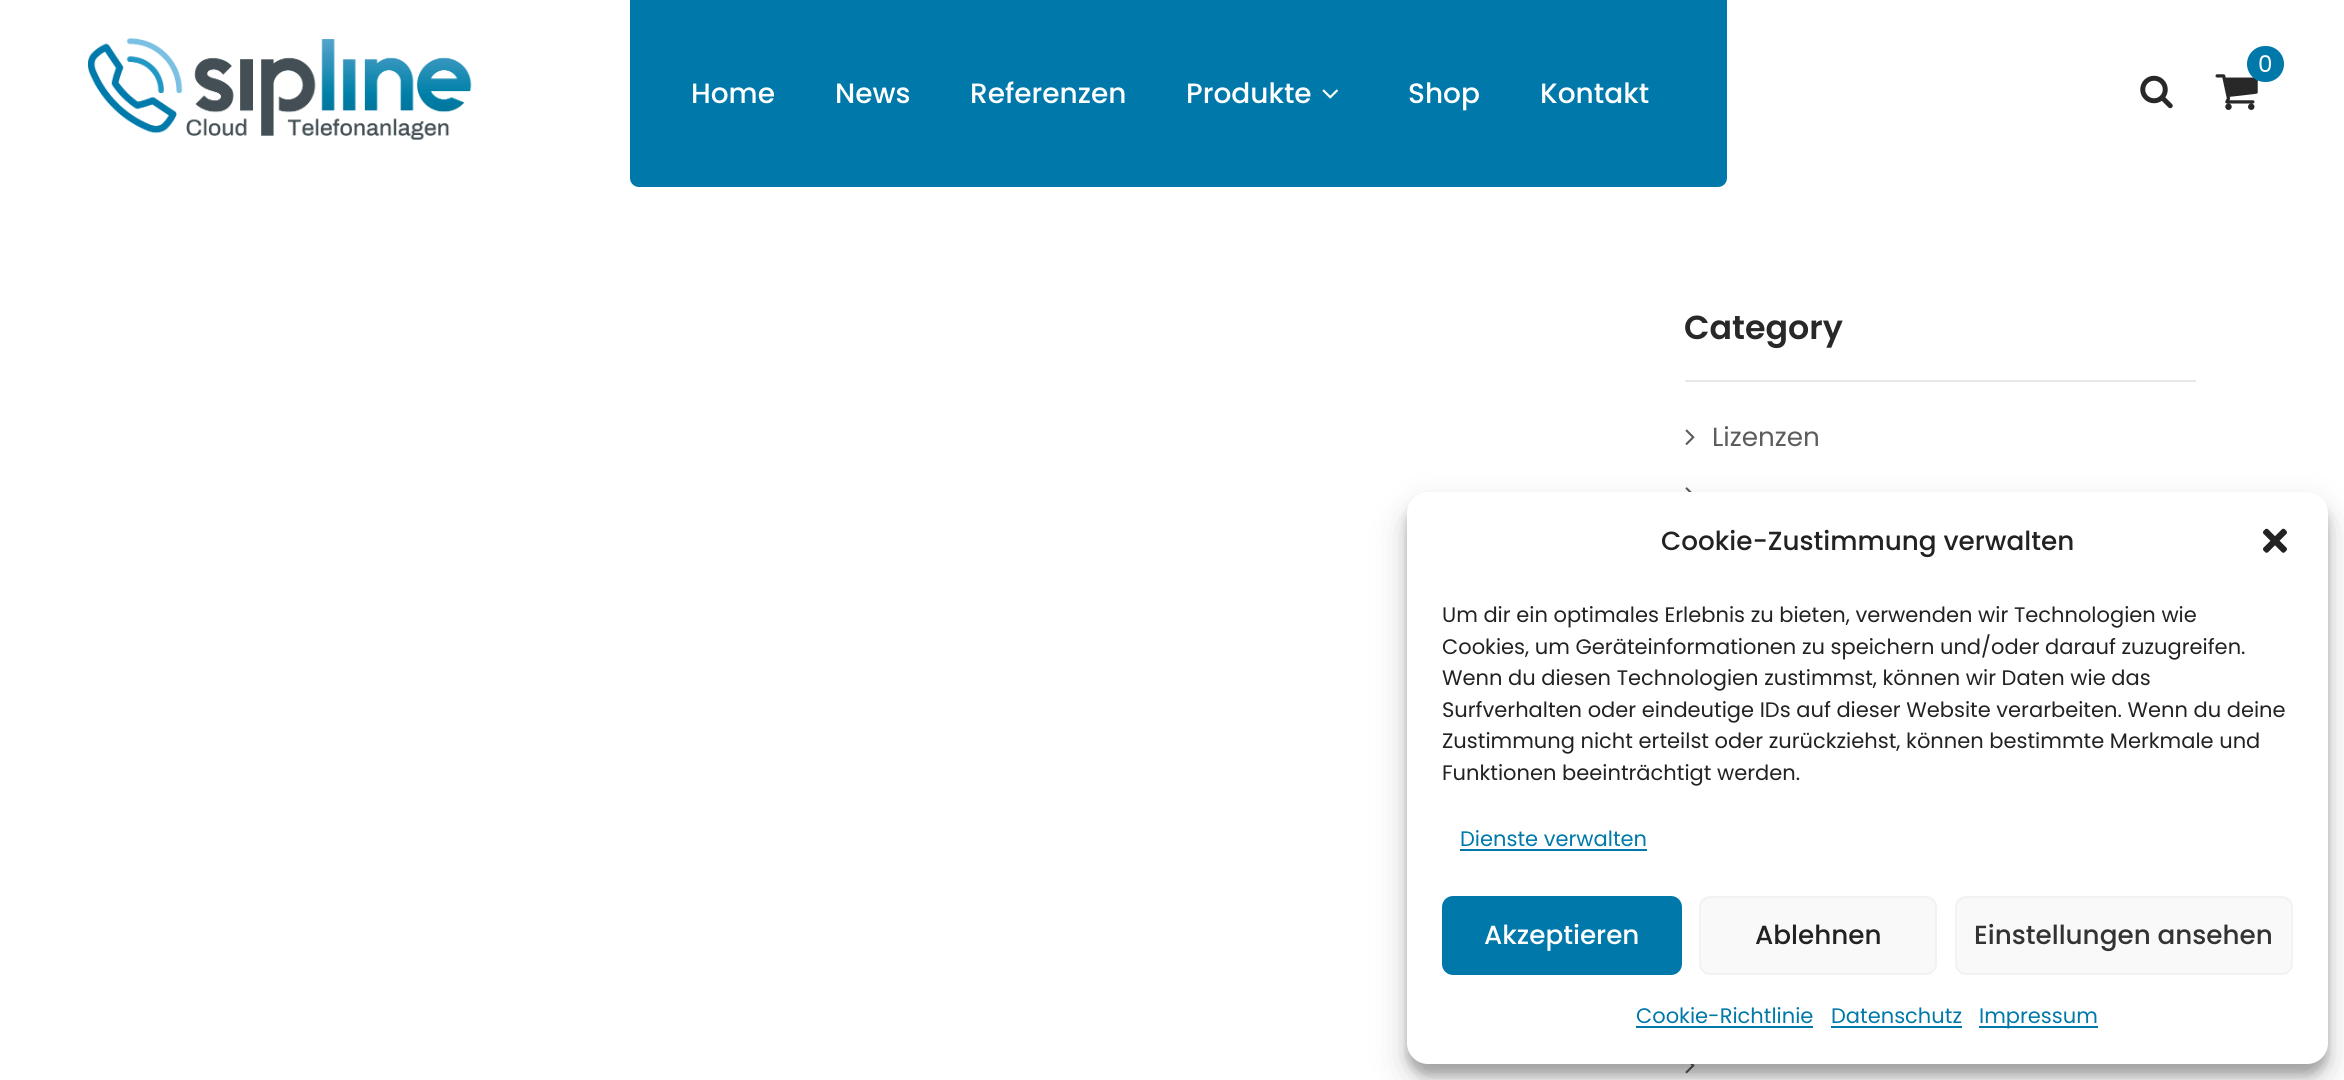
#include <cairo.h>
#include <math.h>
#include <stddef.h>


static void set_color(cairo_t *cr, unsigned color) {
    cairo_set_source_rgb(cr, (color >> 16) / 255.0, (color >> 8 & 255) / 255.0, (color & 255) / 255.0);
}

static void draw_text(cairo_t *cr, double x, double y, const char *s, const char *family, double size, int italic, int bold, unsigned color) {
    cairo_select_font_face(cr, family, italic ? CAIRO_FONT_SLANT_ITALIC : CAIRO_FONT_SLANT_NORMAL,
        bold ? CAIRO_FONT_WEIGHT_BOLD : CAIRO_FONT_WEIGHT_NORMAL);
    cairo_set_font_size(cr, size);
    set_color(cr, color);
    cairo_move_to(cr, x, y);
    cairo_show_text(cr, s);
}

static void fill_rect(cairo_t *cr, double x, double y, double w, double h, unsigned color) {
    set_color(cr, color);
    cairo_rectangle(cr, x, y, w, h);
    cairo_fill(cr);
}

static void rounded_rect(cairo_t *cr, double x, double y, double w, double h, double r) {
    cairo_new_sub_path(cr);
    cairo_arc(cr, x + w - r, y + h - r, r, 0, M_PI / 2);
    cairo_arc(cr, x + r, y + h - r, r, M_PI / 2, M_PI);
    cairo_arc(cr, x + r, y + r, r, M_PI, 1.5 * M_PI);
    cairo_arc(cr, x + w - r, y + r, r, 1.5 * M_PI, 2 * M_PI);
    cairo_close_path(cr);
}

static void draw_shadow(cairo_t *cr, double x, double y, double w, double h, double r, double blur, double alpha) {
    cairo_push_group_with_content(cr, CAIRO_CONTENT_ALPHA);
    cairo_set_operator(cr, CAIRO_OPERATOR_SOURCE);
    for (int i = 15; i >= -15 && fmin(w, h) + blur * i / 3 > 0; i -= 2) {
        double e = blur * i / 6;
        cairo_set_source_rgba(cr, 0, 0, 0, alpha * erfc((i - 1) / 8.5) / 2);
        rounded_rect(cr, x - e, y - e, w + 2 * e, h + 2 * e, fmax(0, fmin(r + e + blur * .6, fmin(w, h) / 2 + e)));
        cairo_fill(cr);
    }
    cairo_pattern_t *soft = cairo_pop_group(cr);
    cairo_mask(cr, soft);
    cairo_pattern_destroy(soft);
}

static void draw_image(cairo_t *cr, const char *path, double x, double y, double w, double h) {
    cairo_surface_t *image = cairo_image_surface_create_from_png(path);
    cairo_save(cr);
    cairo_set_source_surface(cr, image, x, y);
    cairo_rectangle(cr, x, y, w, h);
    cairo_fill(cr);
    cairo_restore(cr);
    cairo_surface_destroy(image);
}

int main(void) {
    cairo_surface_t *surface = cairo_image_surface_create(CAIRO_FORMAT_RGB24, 2344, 1080);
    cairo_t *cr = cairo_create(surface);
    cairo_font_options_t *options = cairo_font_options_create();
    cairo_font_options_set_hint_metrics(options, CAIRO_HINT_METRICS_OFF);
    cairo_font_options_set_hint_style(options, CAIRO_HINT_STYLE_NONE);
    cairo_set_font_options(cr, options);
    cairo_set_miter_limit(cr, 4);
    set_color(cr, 0xFFFFFF);
    cairo_paint(cr);
    draw_image(cr, "assets/img1.png", 88, 38, 384, 102);
    draw_image(cr, "assets/img2.png", 2215, 74, 43, 36);
    set_color(cr, 0x0079AA);
    rounded_rect(cr, 2247, 46, 37, 36, 18);
    cairo_fill(cr);
    draw_text(cr, 2258, 72, "0", "Poppins", 23, 0, 0, 0xFFFFFF);
    draw_image(cr, "assets/img3.png", 2140, 75, 33, 34);
    set_color(cr, 0x0079AA);
    cairo_new_path(cr);
    cairo_move_to(cr, 630, 0);
    cairo_line_to(cr, 1727, 0);
    cairo_line_to(cr, 1727, 178);
    cairo_curve_to(cr, 1727, 183, 1723, 187, 1718, 187);
    cairo_line_to(cr, 639, 187);
    cairo_curve_to(cr, 634, 187, 630, 183, 630, 178);
    cairo_close_path(cr);
    cairo_fill(cr);
    draw_text(cr, 691, 103, "Home", "Poppins Medium", 28, 0, 0, 0xFFFFFF);
    draw_text(cr, 835, 103, "News", "Poppins Medium", 28, 0, 0, 0xFFFFFF);
    draw_text(cr, 970, 103, "Referenzen", "Poppins Medium", 28, 0, 0, 0xFFFFFF);
    draw_text(cr, 1186, 103, "Produkte", "Poppins Medium", 28, 0, 0, 0xFFFFFF);
    draw_image(cr, "assets/img4.png", 1322, 89, 16, 10);
    draw_text(cr, 1408, 103, "Shop", "Poppins Medium", 28, 0, 0, 0xFFFFFF);
    draw_text(cr, 1540, 103, "Kontakt", "Poppins Medium", 28, 0, 0, 0xFFFFFF);
    fill_rect(cr, 1685, 380, 511, 2, 0xE9E8E8);
    draw_text(cr, 1684, 339, "Category", "Poppins SemiBold", 33.25, 0, 0, 0x282828);
    draw_image(cr, "assets/img5.png", 1685, 429, 10, 16);
    draw_text(cr, 1712, 446, "Lizenzen", "Poppins", 26.25, 0, 0, 0x5C5C5C);
    draw_image(cr, "assets/img6.png", 1685, 487, 7, 5);
    draw_image(cr, "assets/img7.png", 1685, 1064, 10, 10);
    set_color(cr, 0x000000);
    draw_shadow(cr, 1407, 502, 921, 573, 21, 5, 0.23);
    draw_shadow(cr, 1407, 509, 921, 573, 21, 17.5, 0.19);
    set_color(cr, 0xFFFFFF);
    rounded_rect(cr, 1407, 492, 921, 572, 21);
    cairo_fill(cr);
    draw_text(cr, 1661, 550, "Cookie-Zustimmung verwalten", "Poppins Medium", 26.25, 0, 0, 0x222222);
    draw_image(cr, "assets/img8.png", 2263, 528, 24, 25);
    draw_text(cr, 1442, 622, "Um dir ein optimales Erlebnis zu bieten, verwenden wir Technologien wie", "Poppins", 21, 0, 0, 0x222222);
    draw_text(cr, 1442, 654, "Cookies, um Geräteinformationen zu speichern und/oder darauf zuzugreifen.", "Poppins", 21, 0, 0, 0x222222);
    draw_text(cr, 1442, 685, "Wenn du diesen Technologien zustimmst, können wir Daten wie das", "Poppins", 21, 0, 0, 0x222222);
    draw_text(cr, 1442, 717, "Surfverhalten oder eindeutige IDs auf dieser Website verarbeiten. Wenn du deine", "Poppins", 21, 0, 0, 0x222222);
    draw_text(cr, 1442, 748, "Zustimmung nicht erteilst oder zurückziehst, können bestimmte Merkmale und", "Poppins", 21, 0, 0, 0x222222);
    draw_text(cr, 1442, 780, "Funktionen beeinträchtigt werden.", "Poppins", 21, 0, 0, 0x222222);
    draw_text(cr, 1460, 846, "Dienste verwalten", "Poppins", 21, 0, 0, 0x0079AA);
    fill_rect(cr, 1460, 849, 187, 2, 0x0079AA);
    rounded_rect(cr, 1443, 897, 238, 77, 10);
    cairo_fill_preserve(cr);
    cairo_stroke(cr);
    draw_text(cr, 1484, 944, "Akzeptieren", "Poppins Medium", 26.25, 0, 0, 0xFFFFFF);
    set_color(cr, 0xF9F9F9);
    rounded_rect(cr, 1700, 897, 236, 77, 10);
    cairo_fill_preserve(cr);
    set_color(cr, 0xF2F2F2);
    cairo_stroke(cr);
    draw_text(cr, 1755, 944, "Ablehnen", "Poppins Medium", 26.25, 0, 0, 0x222222);
    set_color(cr, 0xF9F9F9);
    rounded_rect(cr, 1956, 897, 336, 77, 10);
    cairo_fill_preserve(cr);
    set_color(cr, 0xF2F2F2);
    cairo_stroke(cr);
    draw_text(cr, 1974, 944, "Einstellungen ansehen", "Poppins Medium", 26.25, 0, 0, 0x333333);
    draw_text(cr, 1636, 1023, "Cookie-Richtlinie", "Poppins", 21, 0, 0, 0x0079AA);
    fill_rect(cr, 1636, 1026, 177, 2, 0x0079AA);
    draw_text(cr, 1831, 1023, "Datenschutz", "Poppins", 21, 0, 0, 0x0079AA);
    fill_rect(cr, 1831, 1026, 131, 2, 0x0079AA);
    fill_rect(cr, 1979, 1026, 119, 2, 0x0079AA);
    draw_text(cr, 1979, 1023, "Impressum", "Poppins", 21, 0, 0, 0x0079AA);
    cairo_surface_write_to_png(surface, "output.png");
    cairo_font_options_destroy(options);
    cairo_destroy(cr);
    cairo_surface_destroy(surface);
    return 0;
}
